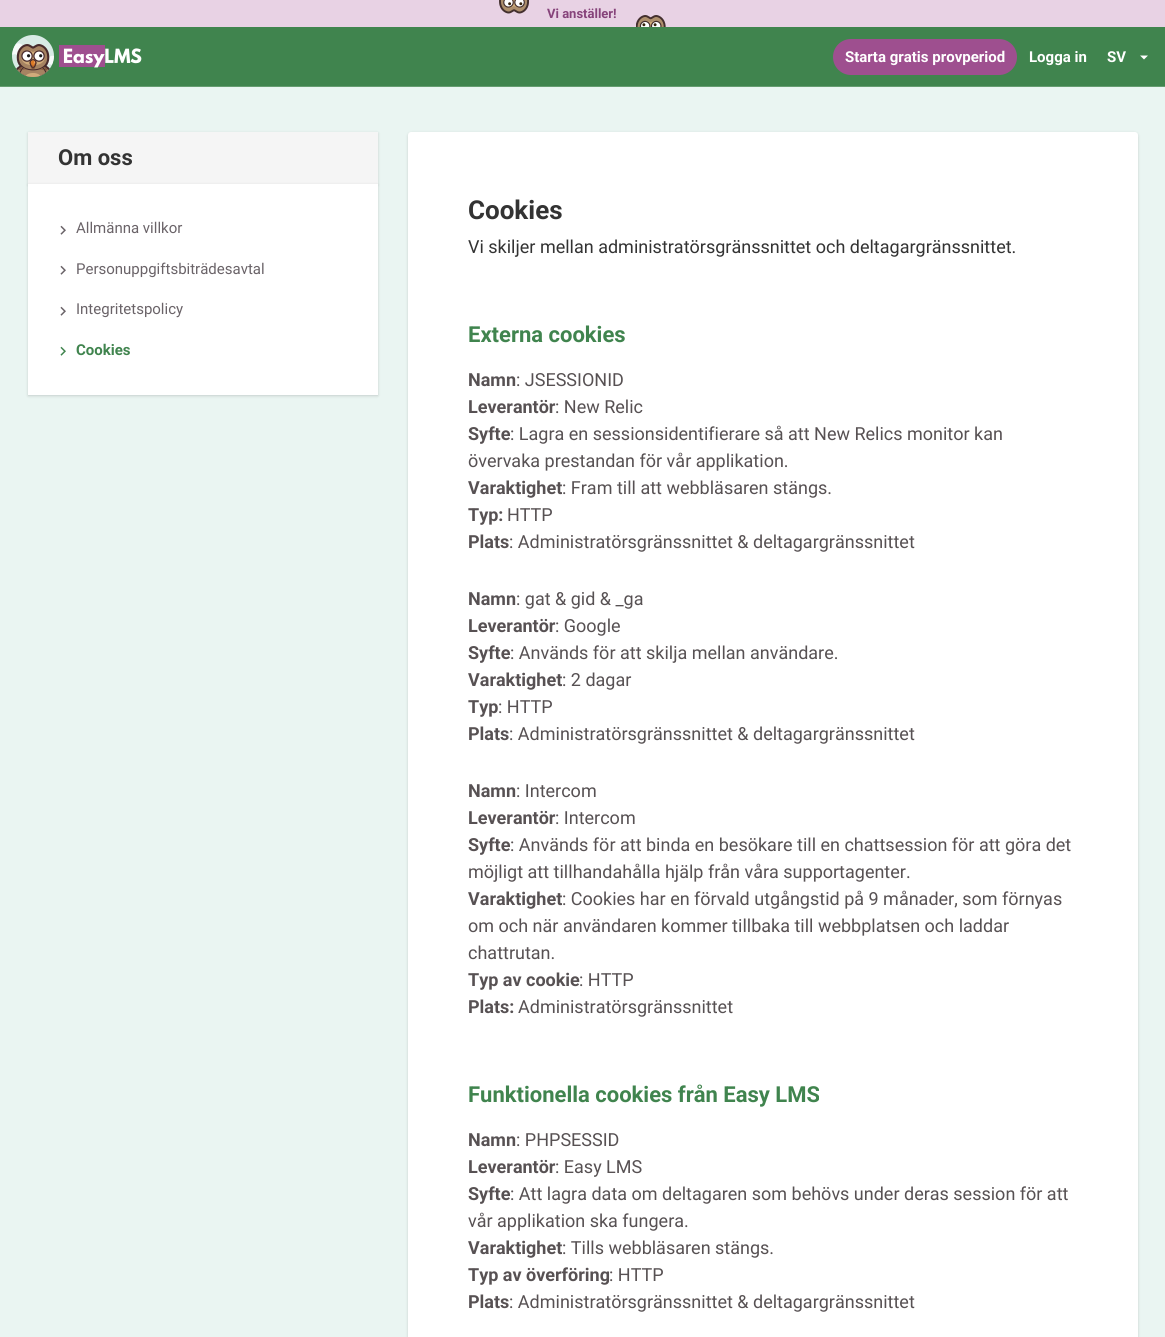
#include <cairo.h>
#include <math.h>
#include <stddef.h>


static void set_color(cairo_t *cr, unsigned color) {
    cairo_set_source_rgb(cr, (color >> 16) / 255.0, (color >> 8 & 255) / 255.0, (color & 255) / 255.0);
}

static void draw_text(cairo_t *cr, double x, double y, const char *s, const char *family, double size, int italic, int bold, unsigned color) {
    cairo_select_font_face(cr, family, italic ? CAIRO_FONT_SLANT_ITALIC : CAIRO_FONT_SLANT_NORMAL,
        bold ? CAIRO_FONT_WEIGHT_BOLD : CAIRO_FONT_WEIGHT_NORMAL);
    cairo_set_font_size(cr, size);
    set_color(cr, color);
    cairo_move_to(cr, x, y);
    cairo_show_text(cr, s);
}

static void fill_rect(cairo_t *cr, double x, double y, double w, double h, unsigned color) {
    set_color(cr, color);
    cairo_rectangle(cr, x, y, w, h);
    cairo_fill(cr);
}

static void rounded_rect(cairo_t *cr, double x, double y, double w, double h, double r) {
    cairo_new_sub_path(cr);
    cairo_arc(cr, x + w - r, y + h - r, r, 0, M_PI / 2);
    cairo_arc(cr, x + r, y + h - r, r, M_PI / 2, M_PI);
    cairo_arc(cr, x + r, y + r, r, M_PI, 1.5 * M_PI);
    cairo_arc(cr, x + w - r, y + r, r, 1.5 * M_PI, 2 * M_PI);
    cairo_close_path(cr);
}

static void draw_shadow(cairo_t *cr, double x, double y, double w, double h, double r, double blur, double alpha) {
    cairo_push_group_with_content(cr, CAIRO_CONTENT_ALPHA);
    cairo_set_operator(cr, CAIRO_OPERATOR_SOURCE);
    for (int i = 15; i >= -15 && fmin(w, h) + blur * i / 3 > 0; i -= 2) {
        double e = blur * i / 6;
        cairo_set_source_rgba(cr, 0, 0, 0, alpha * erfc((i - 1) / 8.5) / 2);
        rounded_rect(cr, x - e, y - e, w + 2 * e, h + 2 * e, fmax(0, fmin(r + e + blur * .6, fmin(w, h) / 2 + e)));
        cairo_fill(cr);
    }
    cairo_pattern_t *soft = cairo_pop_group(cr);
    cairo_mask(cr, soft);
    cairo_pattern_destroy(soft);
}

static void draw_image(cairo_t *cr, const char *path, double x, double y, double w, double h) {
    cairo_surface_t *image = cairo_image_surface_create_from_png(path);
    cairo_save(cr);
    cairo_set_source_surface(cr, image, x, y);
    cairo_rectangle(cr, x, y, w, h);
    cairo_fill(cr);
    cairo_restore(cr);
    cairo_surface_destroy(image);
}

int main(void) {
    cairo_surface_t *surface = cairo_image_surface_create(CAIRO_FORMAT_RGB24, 1165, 1337);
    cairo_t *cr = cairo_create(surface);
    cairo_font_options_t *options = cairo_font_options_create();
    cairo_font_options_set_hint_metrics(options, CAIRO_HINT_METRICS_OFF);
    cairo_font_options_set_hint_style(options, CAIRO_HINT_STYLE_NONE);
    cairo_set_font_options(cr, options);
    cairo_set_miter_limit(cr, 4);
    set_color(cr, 0xEAF5F2);
    cairo_paint(cr);
    fill_rect(cr, 0, 0, 1165, 27, 0xE8D2E4);
    draw_image(cr, "assets/img1.png", 499, 0, 30, 14);
    draw_text(cr, 547, 18, "Vi anställer!", "Roboto", 13, 0, 1, 0x86437A);
    draw_image(cr, "assets/img2.png", 636, 15, 30, 12);
    fill_rect(cr, 0, 27, 1165, 59, 0x40844E);
    fill_rect(cr, 0, 86, 1165, 1, 0x669D71);
    draw_image(cr, "assets/img3.png", 12, 35, 130, 42);
    set_color(cr, 0x9E4F8F);
    rounded_rect(cr, 833, 39, 184, 36, 18);
    cairo_fill(cr);
    draw_text(cr, 845, 62, "Starta gratis provperiod", "Roboto", 15, 0, 1, 0xFFFFFF);
    draw_text(cr, 1029, 62, "Logga in", "Roboto", 15, 0, 1, 0xFFFFFF);
    draw_text(cr, 1107, 62, "SV", "Roboto", 15, 0, 1, 0xFFFFFF);
    cairo_new_path(cr);
    cairo_move_to(cr, 1140, 55.5);
    cairo_line_to(cr, 1144, 59.5);
    cairo_line_to(cr, 1148, 55.5);
    cairo_close_path(cr);
    cairo_fill(cr);
    set_color(cr, 0x333333);
    draw_shadow(cr, 28, 133, 350, 52, 0, 1, 0.1);
    draw_shadow(cr, 28, 133, 350, 52, 0, 1.5, 0.1);
    fill_rect(cr, 28, 132, 350, 52, 0xF5F5F5);
    draw_text(cr, 58, 165, "Om oss", "Roboto", 22, 0, 1, 0x333333);
    set_color(cr, 0x333333);
    draw_shadow(cr, 28, 185, 350, 211, 0, 1, 0.1);
    draw_shadow(cr, 28, 185, 350, 211, 0, 1.5, 0.1);
    fill_rect(cr, 28, 184, 350, 211, 0xFFFFFF);
    draw_image(cr, "assets/img4.png", 60, 225, 6, 10);
    draw_text(cr, 76, 233, "Allmänna villkor", "Roboto", 15, 0, 0, 0x6A6368);
    draw_image(cr, "assets/img4.png", 60, 265, 6, 10);
    draw_text(cr, 76, 274, "Personuppgiftsbiträdesavtal", "Roboto", 15, 0, 0, 0x6A6368);
    draw_image(cr, "assets/img4.png", 60, 306, 6, 10);
    draw_text(cr, 76, 314, "Integritetspolicy", "Roboto", 15, 0, 0, 0x6A6368);
    draw_image(cr, "assets/img5.png", 60, 346, 6, 10);
    draw_text(cr, 76, 355, "Cookies", "Roboto", 15, 0, 1, 0x40844E);
    set_color(cr, 0x333333);
    draw_shadow(cr, 408, 133, 730, 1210, 3, 1, 0.1);
    draw_shadow(cr, 408, 133, 730, 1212, 3, 1.5, 0.1);
    set_color(cr, 0xFFFFFF);
    rounded_rect(cr, 408, 132, 730, 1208, 3);
    cairo_fill(cr);
    draw_text(cr, 468, 219, "Cookies", "Roboto", 26, 0, 1, 0x333333);
    draw_text(cr, 468, 253, "Vi skiljer mellan administratörsgränssnittet och deltagargränssnittet.", "Roboto", 18, 0, 0, 0x333333);
    draw_text(cr, 468, 342, "Externa cookies", "Roboto", 22, 0, 1, 0x40844E);
    draw_text(cr, 468, 386, "Namn", "Roboto", 18, 0, 1, 0x575153);
    draw_text(cr, 516, 386, ": JSESSIONID", "Roboto", 18, 0, 0, 0x575153);
    draw_text(cr, 468, 413, "Leverantör", "Roboto", 18, 0, 1, 0x575153);
    draw_text(cr, 555, 413, ": New Relic", "Roboto", 18, 0, 0, 0x575153);
    draw_text(cr, 468, 440, "Syfte", "Roboto", 18, 0, 1, 0x575153);
    draw_text(cr, 510, 440, ": Lagra en sessionsidentifierare så att New Relics monitor kan", "Roboto", 18, 0, 0, 0x575153);
    draw_text(cr, 468, 467, "övervaka prestandan för vår applikation.", "Roboto", 18, 0, 0, 0x575153);
    draw_text(cr, 468, 494, "Varaktighet", "Roboto", 18, 0, 1, 0x575153);
    draw_text(cr, 562, 494, ": Fram till att webbläsaren stängs.", "Roboto", 18, 0, 0, 0x575153);
    draw_text(cr, 468, 521, "Typ:", "Roboto", 18, 0, 1, 0x575153);
    draw_text(cr, 507, 521, "HTTP", "Roboto", 18, 0, 0, 0x575153);
    draw_text(cr, 468, 548, "Plats", "Roboto", 18, 0, 1, 0x575153);
    draw_text(cr, 509, 548, ": Administratörsgränssnittet & deltagargränssnittet", "Roboto", 18, 0, 0, 0x575153);
    draw_text(cr, 468, 605, "Namn", "Roboto", 18, 0, 1, 0x575153);
    draw_text(cr, 516, 605, ": gat & gid & _ga", "Roboto", 18, 0, 0, 0x575153);
    draw_text(cr, 468, 632, "Leverantör", "Roboto", 18, 0, 1, 0x575153);
    draw_text(cr, 555, 632, ": Google", "Roboto", 18, 0, 0, 0x575153);
    draw_text(cr, 468, 659, "Syfte", "Roboto", 18, 0, 1, 0x575153);
    draw_text(cr, 510, 659, ": Används för att skilja mellan användare.", "Roboto", 18, 0, 0, 0x575153);
    draw_text(cr, 468, 686, "Varaktighet", "Roboto", 18, 0, 1, 0x575153);
    draw_text(cr, 562, 686, ": 2 dagar", "Roboto", 18, 0, 0, 0x575153);
    draw_text(cr, 468, 713, "Typ", "Roboto", 18, 0, 1, 0x575153);
    draw_text(cr, 498, 713, ": HTTP", "Roboto", 18, 0, 0, 0x575153);
    draw_text(cr, 468, 740, "Plats", "Roboto", 18, 0, 1, 0x575153);
    draw_text(cr, 509, 740, ": Administratörsgränssnittet & deltagargränssnittet", "Roboto", 18, 0, 0, 0x575153);
    draw_text(cr, 468, 797, "Namn", "Roboto", 18, 0, 1, 0x575153);
    draw_text(cr, 516, 797, ": Intercom", "Roboto", 18, 0, 0, 0x575153);
    draw_text(cr, 468, 824, "Leverantör", "Roboto", 18, 0, 1, 0x575153);
    draw_text(cr, 555, 824, ": Intercom", "Roboto", 18, 0, 0, 0x575153);
    draw_text(cr, 468, 851, "Syfte", "Roboto", 18, 0, 1, 0x575153);
    draw_text(cr, 510, 851, ": Används för att binda en besökare till en chattsession för att göra det", "Roboto", 18, 0, 0, 0x575153);
    draw_text(cr, 468, 878, "möjligt att tillhandahålla hjälp från våra supportagenter.", "Roboto", 18, 0, 0, 0x575153);
    draw_text(cr, 468, 905, "Varaktighet", "Roboto", 18, 0, 1, 0x575153);
    draw_text(cr, 562, 905, ": Cookies har en förvald utgångstid på 9 månader, som förnyas", "Roboto", 18, 0, 0, 0x575153);
    draw_text(cr, 468, 932, "om och när användaren kommer tillbaka till webbplatsen och laddar", "Roboto", 18, 0, 0, 0x575153);
    draw_text(cr, 468, 959, "chattrutan.", "Roboto", 18, 0, 0, 0x575153);
    draw_text(cr, 468, 986, "Typ av cookie", "Roboto", 18, 0, 1, 0x575153);
    draw_text(cr, 579, 986, ": HTTP", "Roboto", 18, 0, 0, 0x575153);
    draw_text(cr, 468, 1013, "Plats:", "Roboto", 18, 0, 1, 0x575153);
    draw_text(cr, 518, 1013, "Administratörsgränssnittet", "Roboto", 18, 0, 0, 0x575153);
    draw_text(cr, 468, 1102, "Funktionella cookies från Easy LMS", "Roboto", 22, 0, 1, 0x40844E);
    draw_text(cr, 468, 1146, "Namn", "Roboto", 18, 0, 1, 0x575153);
    draw_text(cr, 516, 1146, ": PHPSESSID", "Roboto", 18, 0, 0, 0x575153);
    draw_text(cr, 468, 1173, "Leverantör", "Roboto", 18, 0, 1, 0x575153);
    draw_text(cr, 555, 1173, ": Easy LMS", "Roboto", 18, 0, 0, 0x575153);
    draw_text(cr, 468, 1200, "Syfte", "Roboto", 18, 0, 1, 0x575153);
    draw_text(cr, 510, 1200, ": Att lagra data om deltagaren som behövs under deras session för att", "Roboto", 18, 0, 0, 0x575153);
    draw_text(cr, 468, 1227, "vår applikation ska fungera.", "Roboto", 18, 0, 0, 0x575153);
    draw_text(cr, 468, 1254, "Varaktighet", "Roboto", 18, 0, 1, 0x575153);
    draw_text(cr, 562, 1254, ": Tills webbläsaren stängs.", "Roboto", 18, 0, 0, 0x575153);
    draw_text(cr, 468, 1281, "Typ av överföring", "Roboto", 18, 0, 1, 0x575153);
    draw_text(cr, 609, 1281, ": HTTP", "Roboto", 18, 0, 0, 0x575153);
    draw_text(cr, 468, 1308, "Plats", "Roboto", 18, 0, 1, 0x575153);
    draw_text(cr, 509, 1308, ": Administratörsgränssnittet & deltagargränssnittet", "Roboto", 18, 0, 0, 0x575153);
    cairo_surface_write_to_png(surface, "output.png");
    cairo_font_options_destroy(options);
    cairo_destroy(cr);
    cairo_surface_destroy(surface);
    return 0;
}
